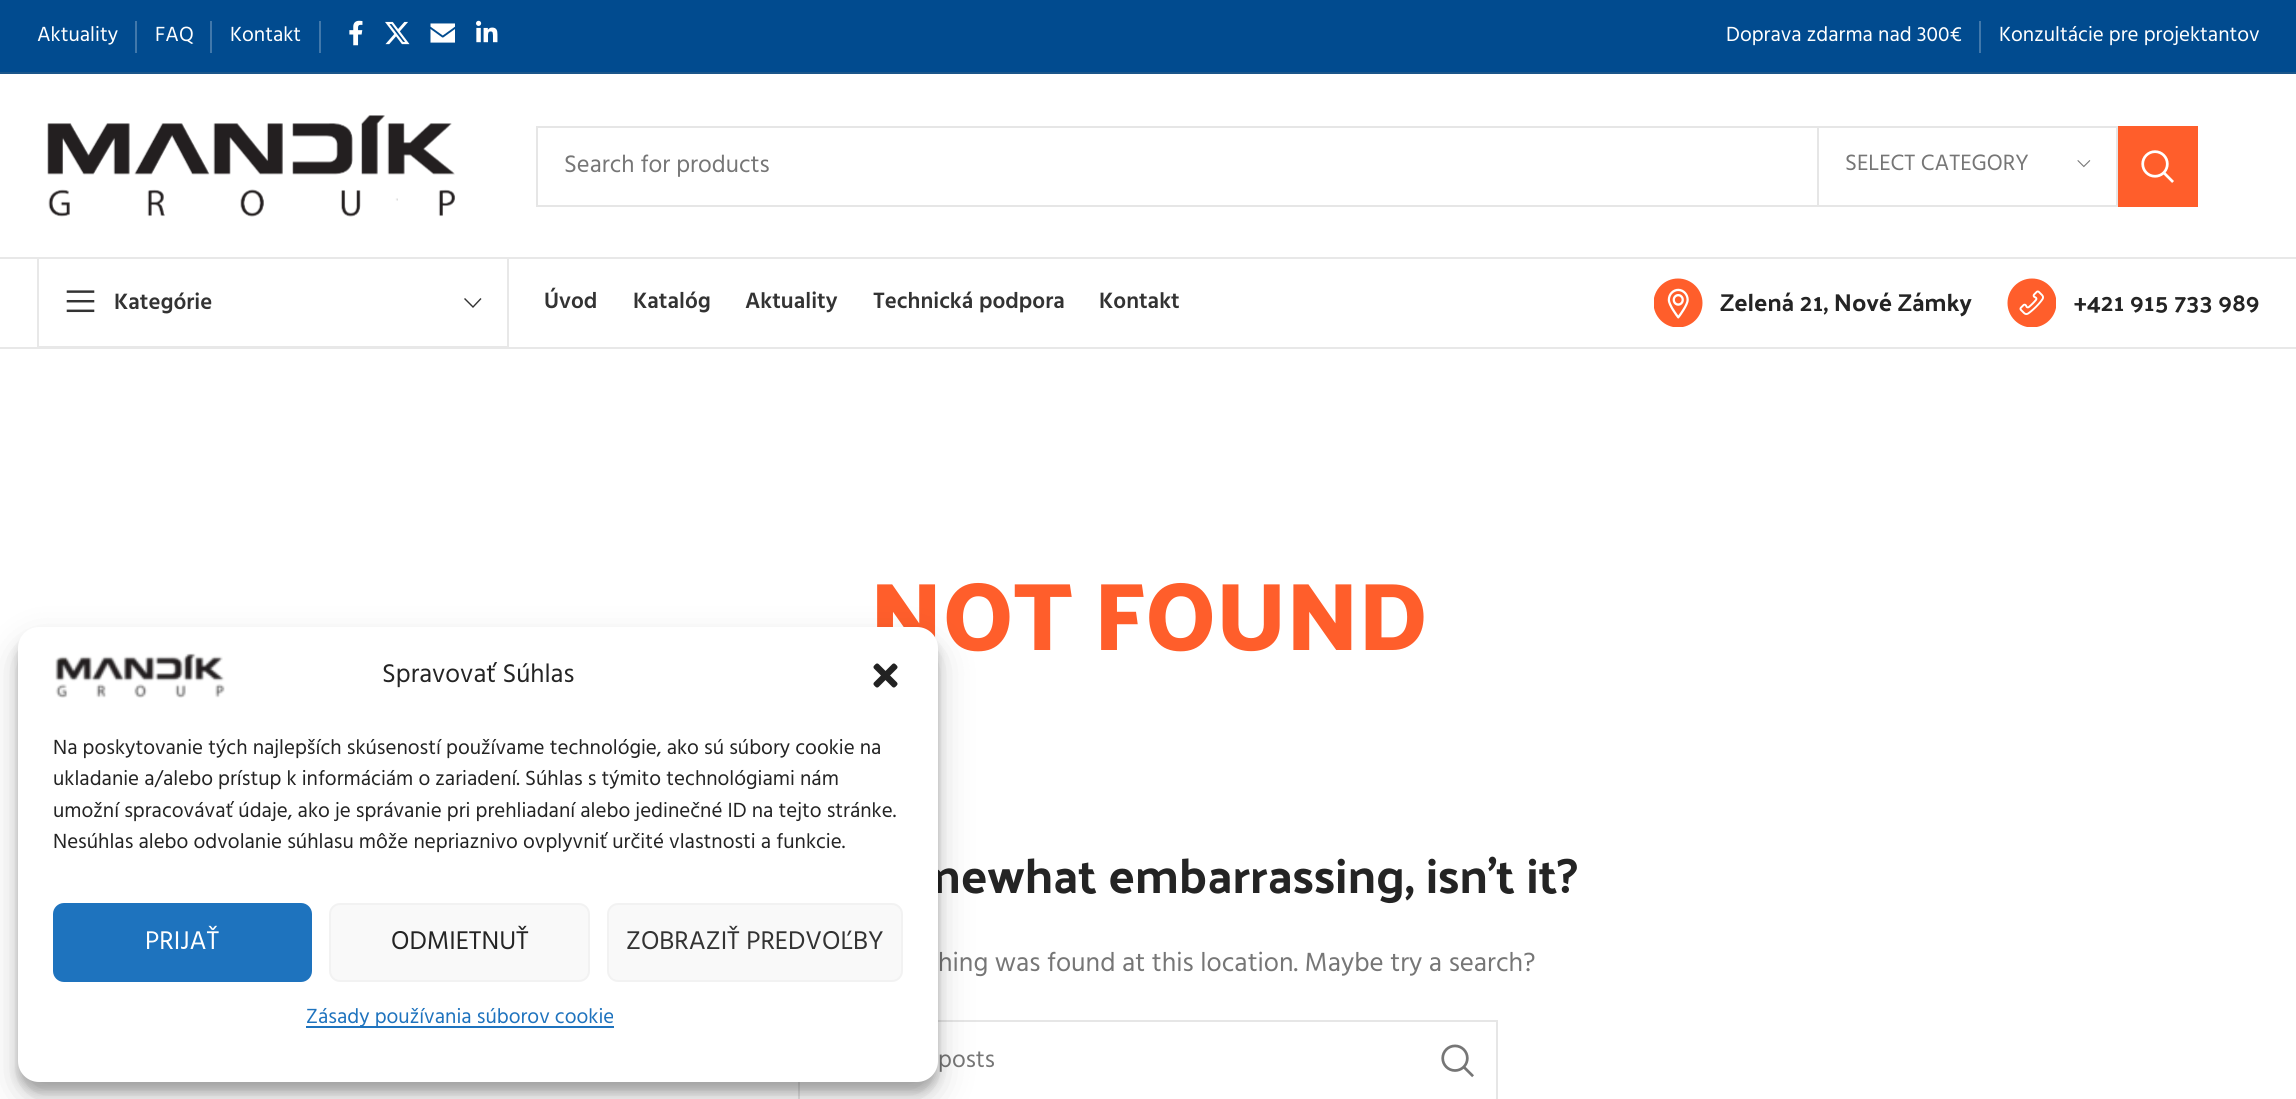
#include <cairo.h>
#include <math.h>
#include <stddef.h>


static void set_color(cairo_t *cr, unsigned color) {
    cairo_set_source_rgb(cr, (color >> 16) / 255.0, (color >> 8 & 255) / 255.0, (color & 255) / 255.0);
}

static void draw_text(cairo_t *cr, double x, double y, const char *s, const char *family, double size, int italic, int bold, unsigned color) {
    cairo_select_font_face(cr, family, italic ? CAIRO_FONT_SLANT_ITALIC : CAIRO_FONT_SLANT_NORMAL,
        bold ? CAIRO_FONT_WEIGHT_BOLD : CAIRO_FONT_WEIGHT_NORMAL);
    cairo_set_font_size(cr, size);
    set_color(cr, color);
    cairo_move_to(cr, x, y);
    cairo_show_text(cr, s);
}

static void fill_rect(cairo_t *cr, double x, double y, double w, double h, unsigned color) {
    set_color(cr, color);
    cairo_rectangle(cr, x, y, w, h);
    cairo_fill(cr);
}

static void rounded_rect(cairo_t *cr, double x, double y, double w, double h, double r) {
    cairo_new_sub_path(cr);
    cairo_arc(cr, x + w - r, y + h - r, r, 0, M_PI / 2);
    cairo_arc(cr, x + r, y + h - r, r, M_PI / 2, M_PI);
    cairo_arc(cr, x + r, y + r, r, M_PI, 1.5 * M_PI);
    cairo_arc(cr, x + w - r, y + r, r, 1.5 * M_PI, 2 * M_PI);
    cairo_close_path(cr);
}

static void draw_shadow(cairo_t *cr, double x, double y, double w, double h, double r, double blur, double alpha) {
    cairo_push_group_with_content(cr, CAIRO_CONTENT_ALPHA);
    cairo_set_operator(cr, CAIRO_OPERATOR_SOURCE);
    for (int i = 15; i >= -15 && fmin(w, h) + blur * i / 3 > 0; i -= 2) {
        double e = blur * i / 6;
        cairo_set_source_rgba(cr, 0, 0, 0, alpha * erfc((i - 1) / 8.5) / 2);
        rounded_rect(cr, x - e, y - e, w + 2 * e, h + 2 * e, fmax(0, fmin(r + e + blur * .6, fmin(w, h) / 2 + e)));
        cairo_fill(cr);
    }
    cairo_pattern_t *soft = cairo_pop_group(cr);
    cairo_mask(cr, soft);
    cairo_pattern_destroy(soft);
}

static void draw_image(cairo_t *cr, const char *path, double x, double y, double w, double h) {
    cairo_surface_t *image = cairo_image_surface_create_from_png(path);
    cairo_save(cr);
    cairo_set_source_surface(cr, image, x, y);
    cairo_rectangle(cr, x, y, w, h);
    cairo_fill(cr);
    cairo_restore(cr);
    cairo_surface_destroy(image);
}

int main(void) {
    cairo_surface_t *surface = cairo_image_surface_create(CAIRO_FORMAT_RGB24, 2296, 1099);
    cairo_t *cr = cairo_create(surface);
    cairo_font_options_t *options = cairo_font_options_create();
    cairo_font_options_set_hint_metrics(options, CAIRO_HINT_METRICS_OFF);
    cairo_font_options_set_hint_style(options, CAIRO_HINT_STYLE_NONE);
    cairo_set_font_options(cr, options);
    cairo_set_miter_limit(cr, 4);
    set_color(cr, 0xFFFFFF);
    cairo_paint(cr);
    fill_rect(cr, 0, 0, 2296, 72, 0x014B8F);
    fill_rect(cr, 0, 72, 2296, 2, 0x1B568A);
    draw_text(cr, 37, 41, "Aktuality", "Hind", 21, 0, 0, 0xFFFFFF);
    fill_rect(cr, 135, 21, 2, 32, 0x4178AB);
    draw_text(cr, 155, 41, "FAQ", "Hind", 21, 0, 0, 0xFFFFFF);
    fill_rect(cr, 210, 21, 2, 32, 0x4178AB);
    draw_text(cr, 230, 41, "Kontakt", "Hind", 21, 0, 0, 0xFFFFFF);
    fill_rect(cr, 319, 21, 2, 32, 0x4178AB);
    draw_image(cr, "assets/img1.png", 349, 20, 14, 26);
    draw_image(cr, "assets/img2.png", 385, 21, 25, 24);
    draw_image(cr, "assets/img3.png", 430, 23, 25, 20);
    draw_image(cr, "assets/img4.png", 476, 20, 22, 23);
    draw_text(cr, 1726, 41, "Doprava zdarma nad 300€", "Hind", 21, 0, 0, 0xFFFFFF);
    fill_rect(cr, 1979, 21, 2, 32, 0x4178AB);
    draw_text(cr, 1999, 41, "Konzultácie pre projektantov", "Hind", 21, 0, 0, 0xFFFFFF);
    fill_rect(cr, 0, 257, 2296, 2, 0xE8E8E8);
    draw_image(cr, "assets/img5.png", 47, 115, 409, 102);
    cairo_rectangle(cr, 537, 127, 1660, 79);
    set_color(cr, 0xE6E6E6);
    cairo_stroke(cr);
    draw_text(cr, 564, 172, "Search for products", "Hind", 24.5, 0, 0, 0x767676);
    fill_rect(cr, 2116, 128, 2, 77, 0xE6E6E6);
    fill_rect(cr, 1817, 128, 2, 77, 0xE6E6E6);
    draw_text(cr, 1845, 170, "SELECT CATEGORY", "Hind", 22.75, 0, 0, 0x767676);
    draw_image(cr, "assets/img6.png", 2077, 160, 14, 8);
    fill_rect(cr, 2118, 126, 80, 81, 0xFF5E2B);
    draw_image(cr, "assets/img7.png", 2141, 150, 33, 33);
    fill_rect(cr, 0, 347, 2296, 2, 0xE8E8E8);
    cairo_rectangle(cr, 38, 258, 470, 89);
    cairo_stroke(cr);
    draw_image(cr, "assets/img8.png", 66, 290, 29, 23);
    draw_text(cr, 114, 309, "Kategórie", "Hind SemiBold", 22.75, 0, 0, 0x333333);
    cairo_new_path(cr);
    cairo_move_to(cr, 480.5, 298);
    cairo_line_to(cr, 473, 306);
    cairo_line_to(cr, 465, 298);
    cairo_line_to(cr, 464, 299);
    cairo_line_to(cr, 473, 308);
    cairo_line_to(cr, 481.5, 299);
    cairo_close_path(cr);
    cairo_fill(cr);
    draw_text(cr, 544, 308, "Úvod", "Hind SemiBold", 22.75, 0, 0, 0x333333);
    draw_text(cr, 633, 308, "Katalóg", "Hind SemiBold", 22.75, 0, 0, 0x333333);
    draw_text(cr, 745, 308, "Aktuality", "Hind SemiBold", 22.75, 0, 0, 0x333333);
    draw_text(cr, 873, 308, "Technická podpora", "Hind SemiBold", 22.75, 0, 0, 0x333333);
    draw_text(cr, 1099, 308, "Kontakt", "Hind SemiBold", 22.75, 0, 0, 0x333333);
    draw_image(cr, "assets/img9.png", 1654, 278, 49, 49);
    draw_text(cr, 1720, 311, "Zelená 21, Nové Zámky", "Palanquin Dark", 24.5, 0, 0, 0x242424);
    draw_image(cr, "assets/img10.png", 2007, 278, 49, 49);
    draw_text(cr, 2074, 311, "+421 915 733 989", "Palanquin Dark", 24.5, 0, 0, 0x242424);
    draw_text(cr, 870, 650, "NOT FOUND", "Palanquin Dark SemiBold", 96.5, 0, 0, 0xFF5E2B);
    draw_text(cr, 917, 893, "mewhat embarrassing, isn’t it?", "Palanquin Dark", 49, 0, 0, 0x242424);
    draw_text(cr, 938, 971, "hing was found at this location. Maybe try a search?", "Hind", 26.95, 0, 0, 0x767676);
    cairo_rectangle(cr, 799, 1021, 698, 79);
    set_color(cr, 0xE6E6E6);
    cairo_stroke(cr);
    draw_text(cr, 938, 1067, "posts", "Hind", 24.5, 0, 0, 0x767676);
    draw_image(cr, "assets/img11.png", 1441, 1044, 33, 34);
    set_color(cr, 0x000000);
    draw_shadow(cr, 18, 637, 920, 455, 21, 5, 0.23);
    draw_shadow(cr, 18, 644, 920, 455, 21, 17.5, 0.19);
    set_color(cr, 0xFFFFFF);
    rounded_rect(cr, 18, 627, 920, 455, 21);
    cairo_fill(cr);
    draw_image(cr, "assets/img12.png", 55, 653, 170, 45);
    draw_text(cr, 382, 682, "Spravovať Súhlas", "Hind", 26.25, 0, 0, 0x242424);
    draw_image(cr, "assets/img13.png", 873, 663, 25, 25);
    draw_text(cr, 53, 754, "Na poskytovanie tých najlepších skúseností používame technológie, ako sú súbory cookie na", "Hind", 21, 0, 0, 0x242424);
    draw_text(cr, 53, 785, "ukladanie a/alebo prístup k informáciám o zariadení. Súhlas s týmito technológiami nám", "Hind", 21, 0, 0, 0x242424);
    draw_text(cr, 53, 817, "umožní spracovávať údaje, ako je správanie pri prehliadaní alebo jedinečné ID na tejto stránke.", "Hind", 21, 0, 0, 0x242424);
    draw_text(cr, 53, 848, "Nesúhlas alebo odvolanie súhlasu môže nepriaznivo ovplyvniť určité vlastnosti a funkcie.", "Hind", 21, 0, 0, 0x242424);
    set_color(cr, 0x1E73BE);
    rounded_rect(cr, 54, 904, 257, 77, 10);
    cairo_fill_preserve(cr);
    cairo_stroke(cr);
    draw_text(cr, 145, 949, "PRIJAŤ", "Hind", 26.25, 0, 0, 0xFFFFFF);
    set_color(cr, 0xF9F9F9);
    rounded_rect(cr, 330, 904, 259, 77, 10);
    cairo_fill_preserve(cr);
    set_color(cr, 0xF2F2F2);
    cairo_stroke(cr);
    draw_text(cr, 391, 949, "ODMIETNUŤ", "Hind", 26.25, 0, 0, 0x242424);
    set_color(cr, 0xF9F9F9);
    rounded_rect(cr, 608, 904, 294, 77, 10);
    cairo_fill_preserve(cr);
    set_color(cr, 0xF2F2F2);
    cairo_stroke(cr);
    draw_text(cr, 626, 949, "ZOBRAZIŤ PREDVOĽBY", "Hind", 26.25, 0, 0, 0x333333);
    fill_rect(cr, 306, 1026, 308, 2, 0x1E73BE);
    draw_text(cr, 306, 1023, "Zásady používania súborov cookie", "Hind", 21, 0, 0, 0x1E73BE);
    cairo_surface_write_to_png(surface, "output.png");
    cairo_font_options_destroy(options);
    cairo_destroy(cr);
    cairo_surface_destroy(surface);
    return 0;
}
